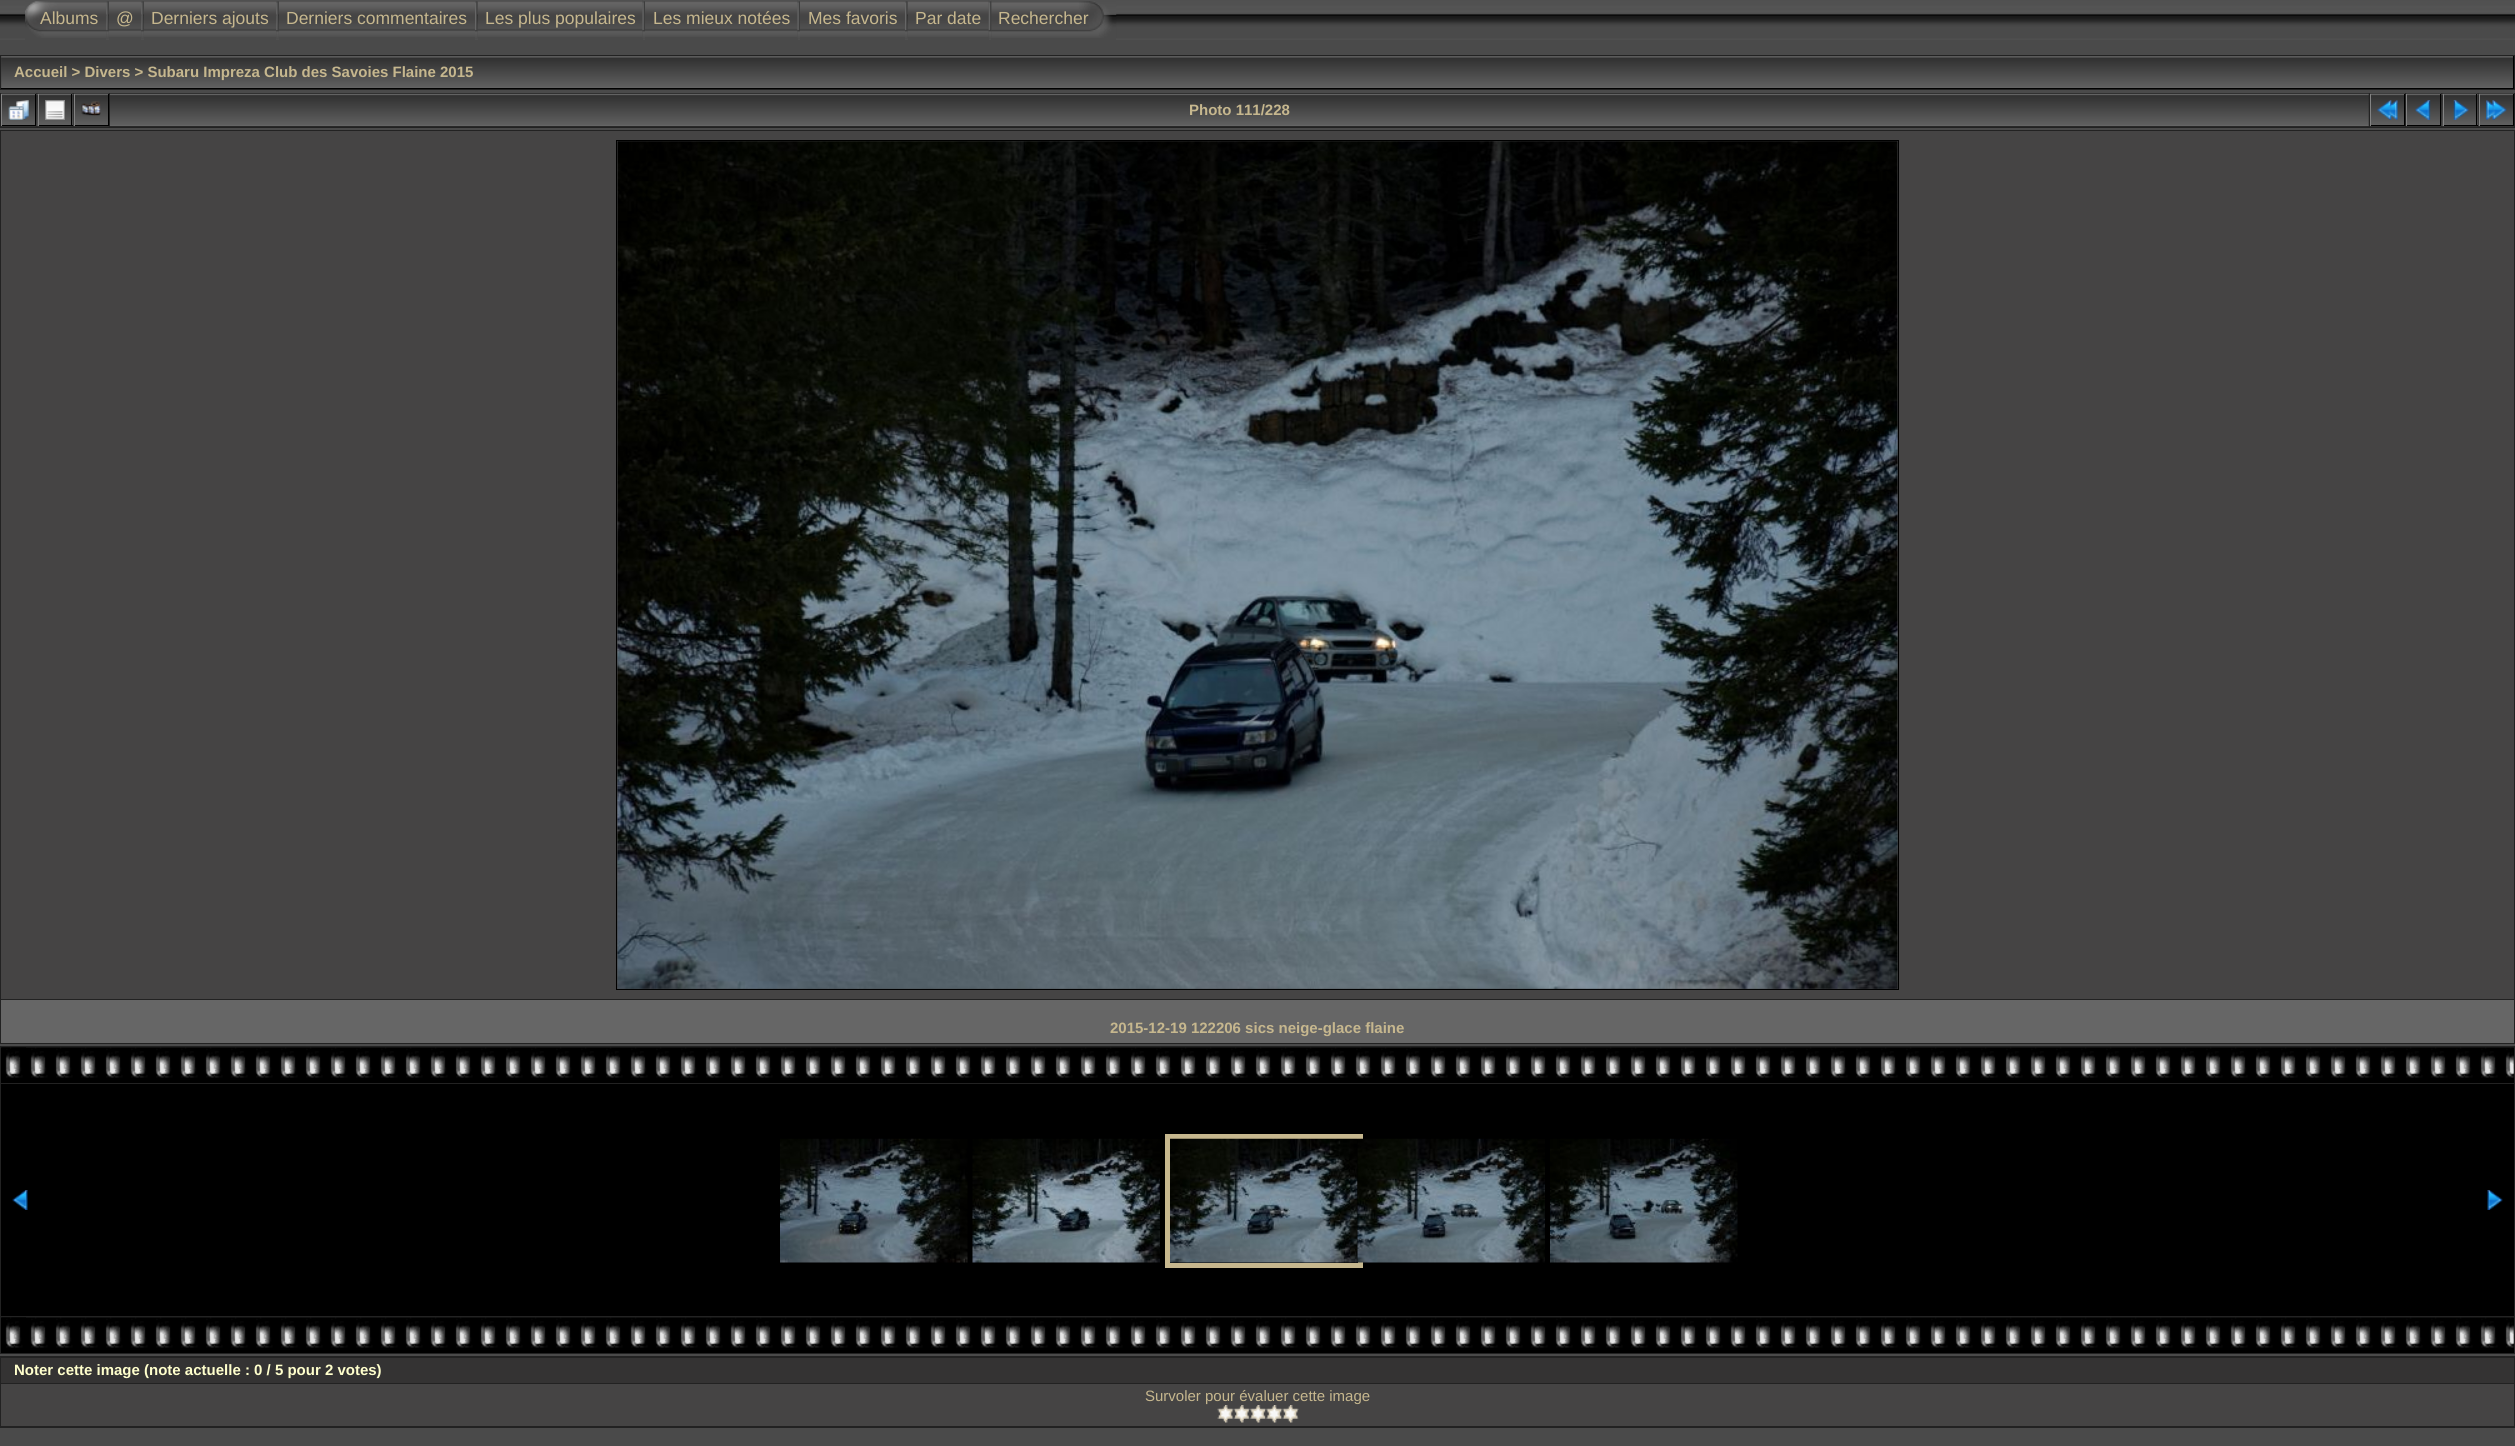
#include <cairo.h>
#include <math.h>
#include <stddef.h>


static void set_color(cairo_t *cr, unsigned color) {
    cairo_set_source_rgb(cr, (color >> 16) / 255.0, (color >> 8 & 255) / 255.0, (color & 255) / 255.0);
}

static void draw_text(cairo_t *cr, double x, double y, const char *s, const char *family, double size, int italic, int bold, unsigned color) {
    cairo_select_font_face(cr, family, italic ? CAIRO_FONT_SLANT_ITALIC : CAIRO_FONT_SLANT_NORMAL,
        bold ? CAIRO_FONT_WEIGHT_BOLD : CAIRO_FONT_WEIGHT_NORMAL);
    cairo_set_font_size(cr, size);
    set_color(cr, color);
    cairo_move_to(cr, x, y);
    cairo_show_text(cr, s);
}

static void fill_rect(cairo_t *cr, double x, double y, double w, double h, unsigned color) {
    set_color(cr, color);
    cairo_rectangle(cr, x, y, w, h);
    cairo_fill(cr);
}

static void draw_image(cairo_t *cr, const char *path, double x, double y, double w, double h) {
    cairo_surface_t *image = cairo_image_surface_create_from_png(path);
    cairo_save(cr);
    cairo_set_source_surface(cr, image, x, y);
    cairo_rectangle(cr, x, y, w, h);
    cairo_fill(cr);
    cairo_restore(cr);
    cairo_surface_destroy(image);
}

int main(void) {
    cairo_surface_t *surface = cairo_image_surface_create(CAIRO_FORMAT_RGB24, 2515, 1446);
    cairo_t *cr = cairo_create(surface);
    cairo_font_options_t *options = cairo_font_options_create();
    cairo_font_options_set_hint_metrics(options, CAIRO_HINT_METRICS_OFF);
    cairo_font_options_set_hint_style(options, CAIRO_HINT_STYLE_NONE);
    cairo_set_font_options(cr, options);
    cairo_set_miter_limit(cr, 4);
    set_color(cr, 0x4A4A4A);
    cairo_paint(cr);
    draw_image(cr, "assets/img1.png", 0, 0, 2515, 40);
    fill_rect(cr, 25, 38, 81, 2, 0x4A4A4A);
    draw_image(cr, "assets/img2.png", 25, 0, 82, 38);
    draw_text(cr, 40, 24, "Albums", "Liberation Sans", 17.5, 0, 0, 0xC6B78E);
    draw_image(cr, "assets/img4.png", 108, 0, 34, 37);
    draw_image(cr, "assets/img3.png", 106, 1, 3, 37);
    fill_rect(cr, 109, 38, 32, 2, 0x4A4A4A);
    draw_text(cr, 116, 24, "@", "Liberation Sans", 17.5, 0, 0, 0xC6B78E);
    draw_image(cr, "assets/img6.png", 143, 0, 134, 37);
    draw_image(cr, "assets/img5.png", 141, 1, 3, 37);
    fill_rect(cr, 144, 38, 132, 2, 0x4A4A4A);
    draw_text(cr, 151, 24, "Derniers ajouts", "Liberation Sans", 17.5, 0, 0, 0xC6B78E);
    draw_image(cr, "assets/img7.png", 278, 0, 197, 37);
    draw_image(cr, "assets/img5.png", 276, 1, 3, 37);
    fill_rect(cr, 279, 38, 196, 2, 0x4A4A4A);
    draw_text(cr, 286, 24, "Derniers commentaires", "Liberation Sans", 17.5, 0, 0, 0xC6B78E);
    fill_rect(cr, 478, 0, 165, 40, 0x4A4A4A);
    draw_image(cr, "assets/img9.png", 477, 0, 166, 37);
    draw_image(cr, "assets/img8.png", 475, 1, 3, 37);
    draw_text(cr, 485, 24, "Les plus populaires", "Liberation Sans", 17.5, 0, 0, 0xC6B78E);
    draw_image(cr, "assets/img10.png", 642, 1, 3, 37);
    fill_rect(cr, 645, 0, 153, 40, 0x4A4A4A);
    draw_image(cr, "assets/img11.png", 645, 0, 153, 37);
    draw_text(cr, 653, 24, "Les mieux notées", "Liberation Sans", 17.5, 0, 0, 0xC6B78E);
    draw_image(cr, "assets/img10.png", 797, 1, 3, 37);
    fill_rect(cr, 800, 38, 105, 2, 0x4A4A4A);
    draw_image(cr, "assets/img12.png", 800, 0, 105, 37);
    draw_text(cr, 808, 24, "Mes favoris", "Liberation Sans", 17.5, 0, 0, 0xC6B78E);
    fill_rect(cr, 908, 0, 81, 40, 0x4A4A4A);
    draw_image(cr, "assets/img13.png", 907, 0, 82, 37);
    draw_image(cr, "assets/img8.png", 905, 1, 3, 37);
    draw_text(cr, 915, 24, "Par date", "Liberation Sans", 17.5, 0, 0, 0xC6B78E);
    fill_rect(cr, 991, 0, 125, 40, 0x4A4A4A);
    draw_image(cr, "assets/img15.png", 991, 0, 126, 38);
    draw_image(cr, "assets/img14.png", 988, 1, 4, 37);
    draw_text(cr, 998, 24, "Rechercher", "Liberation Sans", 17.5, 0, 0, 0xC6B78E);
    fill_rect(cr, 0, 55, 2515, 35, 0x222222);
    fill_rect(cr, 1, 56, 2512, 32, 0x3F3F3F);
    draw_image(cr, "assets/img16.png", 1, 56, 2512, 32);
    fill_rect(cr, 2513, 56, 1, 33, 0x000000);
    fill_rect(cr, 1, 88, 2513, 1, 0x000000);
    draw_text(cr, 14, 77, "Accueil > Divers > Subaru Impreza Club des Savoies Flaine 2015", "Liberation Sans", 15, 0, 1, 0xC6B78E);
    fill_rect(cr, 0, 93, 2515, 35, 0x222222);
    draw_image(cr, "assets/img17.png", 1, 93, 36, 34);
    draw_image(cr, "assets/img18.png", 1, 93, 36, 34);
    fill_rect(cr, 35, 94, 1, 32, 0x000000);
    fill_rect(cr, 1, 125, 35, 1, 0x000000);
    fill_rect(cr, 1, 94, 1, 32, 0x838383);
    draw_image(cr, "assets/img19.png", 8, 100, 21, 20);
    draw_image(cr, "assets/img20.png", 37, 93, 36, 34);
    fill_rect(cr, 72, 94, 1, 31, 0x3F3F3F);
    draw_image(cr, "assets/img21.png", 37, 93, 36, 34);
    fill_rect(cr, 71, 94, 1, 32, 0x000000);
    fill_rect(cr, 38, 125, 35, 1, 0x000000);
    fill_rect(cr, 38, 94, 1, 32, 0x838383);
    draw_image(cr, "assets/img22.png", 45, 100, 20, 20);
    draw_image(cr, "assets/img23.png", 73, 93, 36, 34);
    draw_image(cr, "assets/img24.png", 73, 93, 36, 34);
    fill_rect(cr, 108, 94, 1, 32, 0x000000);
    fill_rect(cr, 74, 125, 35, 1, 0x000000);
    fill_rect(cr, 74, 94, 1, 32, 0x838383);
    draw_image(cr, "assets/img25.png", 81, 101, 20, 15);
    draw_image(cr, "assets/img26.png", 110, 93, 2259, 34);
    draw_text(cr, 1189, 115, "Photo 111/228", "Liberation Sans", 15, 0, 1, 0xC6B78E);
    draw_image(cr, "assets/img27.png", 2370, 93, 35, 34);
    draw_image(cr, "assets/img28.png", 2370, 93, 35, 34);
    fill_rect(cr, 2404, 94, 1, 32, 0x000000);
    fill_rect(cr, 2370, 125, 35, 1, 0x000000);
    fill_rect(cr, 2370, 94, 1, 32, 0x838383);
    draw_image(cr, "assets/img29.png", 2377, 100, 21, 20);
    draw_image(cr, "assets/img17.png", 2406, 93, 36, 34);
    draw_image(cr, "assets/img18.png", 2406, 93, 36, 34);
    fill_rect(cr, 2440, 94, 1, 32, 0x000000);
    fill_rect(cr, 2406, 125, 35, 1, 0x000000);
    fill_rect(cr, 2406, 94, 1, 32, 0x838383);
    draw_image(cr, "assets/img30.png", 2415, 100, 16, 20);
    draw_image(cr, "assets/img20.png", 2442, 93, 36, 34);
    fill_rect(cr, 2477, 94, 1, 31, 0x3F3F3F);
    draw_image(cr, "assets/img21.png", 2442, 93, 36, 34);
    fill_rect(cr, 2476, 94, 1, 32, 0x000000);
    fill_rect(cr, 2443, 125, 35, 1, 0x000000);
    fill_rect(cr, 2443, 94, 1, 32, 0x838383);
    draw_image(cr, "assets/img31.png", 2453, 100, 16, 20);
    draw_image(cr, "assets/img23.png", 2478, 93, 36, 34);
    draw_image(cr, "assets/img24.png", 2478, 93, 36, 34);
    fill_rect(cr, 2513, 94, 1, 32, 0x000000);
    fill_rect(cr, 2479, 125, 35, 1, 0x000000);
    fill_rect(cr, 2479, 94, 1, 32, 0x838383);
    draw_image(cr, "assets/img32.png", 2486, 100, 21, 20);
    fill_rect(cr, 0, 130, 2515, 914, 0x222222);
    fill_rect(cr, 1, 131, 2513, 868, 0x454444);
    cairo_rectangle(cr, 616.5, 140.5, 1282, 849);
    set_color(cr, 0x000000);
    cairo_set_line_width(cr, 1);
    cairo_stroke(cr);
    draw_image(cr, "assets/img33.png", 617, 141, 1281, 848);
    fill_rect(cr, 1, 1000, 2513, 43, 0x666666);
    draw_text(cr, 1110, 1033, "2015-12-19 122206 sics neige-glace flaine", "Liberation Sans", 15, 0, 1, 0xC6B78E);
    fill_rect(cr, 0, 1046, 2515, 308, 0x222222);
    fill_rect(cr, 1, 1048, 2513, 35, 0x000000);
    draw_image(cr, "assets/img34.png", 1, 1047, 2513, 31);
    draw_image(cr, "assets/img35.png", 1, 1047, 25, 27);
    fill_rect(cr, 1, 1084, 2513, 232, 0x000000);
    draw_image(cr, "assets/img36.png", 12, 1190, 16, 20);
    draw_image(cr, "assets/img37.png", 780, 1138, 188, 125);
    draw_image(cr, "assets/img38.png", 972, 1138, 188, 125);
    cairo_rectangle(cr, 1167.5, 1136.5, 193, 129);
    set_color(cr, 0xC6B78E);
    cairo_set_line_width(cr, 5);
    cairo_stroke(cr);
    draw_image(cr, "assets/img39.png", 1170, 1138, 188, 125);
    draw_image(cr, "assets/img40.png", 1357, 1138, 188, 125);
    draw_image(cr, "assets/img41.png", 1550, 1138, 188, 125);
    draw_image(cr, "assets/img42.png", 2487, 1190, 16, 20);
    fill_rect(cr, 1, 1318, 2513, 35, 0x000000);
    draw_image(cr, "assets/img43.png", 1, 1317, 2513, 31);
    draw_image(cr, "assets/img35.png", 1, 1317, 25, 27);
    fill_rect(cr, 0, 1356, 2515, 72, 0x222222);
    fill_rect(cr, 1, 1358, 2513, 25, 0x343333);
    draw_text(cr, 14, 1375, "Noter cette image (note actuelle : 0 / 5 pour 2 votes)", "Liberation Sans", 15, 0, 1, 0xFFFFCC);
    fill_rect(cr, 1, 1384, 2513, 42, 0x454444);
    draw_text(cr, 1145, 1401, "Survoler pour évaluer cette image", "Liberation Sans", 15, 0, 0, 0xC6B78E);
    draw_image(cr, "assets/img44.png", 1217, 1405, 17, 18);
    draw_image(cr, "assets/img45.png", 1233, 1405, 17, 18);
    draw_image(cr, "assets/img46.png", 1250, 1405, 17, 18);
    draw_image(cr, "assets/img47.png", 1266, 1405, 17, 18);
    draw_image(cr, "assets/img48.png", 1282, 1405, 17, 18);
    cairo_surface_write_to_png(surface, "output.png");
    cairo_font_options_destroy(options);
    cairo_destroy(cr);
    cairo_surface_destroy(surface);
    return 0;
}
